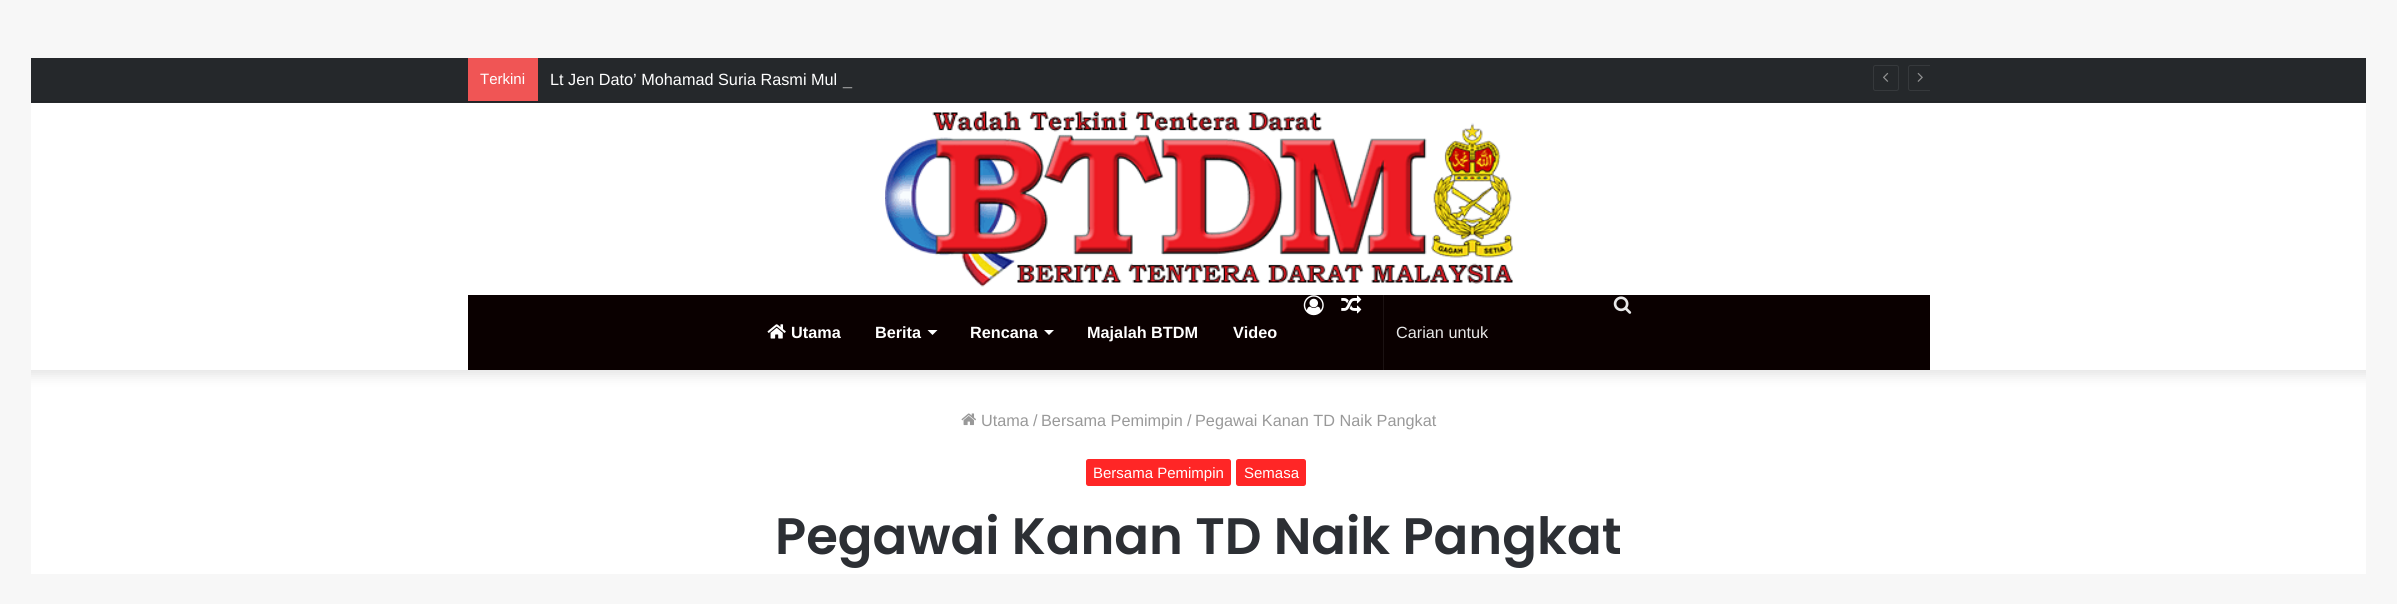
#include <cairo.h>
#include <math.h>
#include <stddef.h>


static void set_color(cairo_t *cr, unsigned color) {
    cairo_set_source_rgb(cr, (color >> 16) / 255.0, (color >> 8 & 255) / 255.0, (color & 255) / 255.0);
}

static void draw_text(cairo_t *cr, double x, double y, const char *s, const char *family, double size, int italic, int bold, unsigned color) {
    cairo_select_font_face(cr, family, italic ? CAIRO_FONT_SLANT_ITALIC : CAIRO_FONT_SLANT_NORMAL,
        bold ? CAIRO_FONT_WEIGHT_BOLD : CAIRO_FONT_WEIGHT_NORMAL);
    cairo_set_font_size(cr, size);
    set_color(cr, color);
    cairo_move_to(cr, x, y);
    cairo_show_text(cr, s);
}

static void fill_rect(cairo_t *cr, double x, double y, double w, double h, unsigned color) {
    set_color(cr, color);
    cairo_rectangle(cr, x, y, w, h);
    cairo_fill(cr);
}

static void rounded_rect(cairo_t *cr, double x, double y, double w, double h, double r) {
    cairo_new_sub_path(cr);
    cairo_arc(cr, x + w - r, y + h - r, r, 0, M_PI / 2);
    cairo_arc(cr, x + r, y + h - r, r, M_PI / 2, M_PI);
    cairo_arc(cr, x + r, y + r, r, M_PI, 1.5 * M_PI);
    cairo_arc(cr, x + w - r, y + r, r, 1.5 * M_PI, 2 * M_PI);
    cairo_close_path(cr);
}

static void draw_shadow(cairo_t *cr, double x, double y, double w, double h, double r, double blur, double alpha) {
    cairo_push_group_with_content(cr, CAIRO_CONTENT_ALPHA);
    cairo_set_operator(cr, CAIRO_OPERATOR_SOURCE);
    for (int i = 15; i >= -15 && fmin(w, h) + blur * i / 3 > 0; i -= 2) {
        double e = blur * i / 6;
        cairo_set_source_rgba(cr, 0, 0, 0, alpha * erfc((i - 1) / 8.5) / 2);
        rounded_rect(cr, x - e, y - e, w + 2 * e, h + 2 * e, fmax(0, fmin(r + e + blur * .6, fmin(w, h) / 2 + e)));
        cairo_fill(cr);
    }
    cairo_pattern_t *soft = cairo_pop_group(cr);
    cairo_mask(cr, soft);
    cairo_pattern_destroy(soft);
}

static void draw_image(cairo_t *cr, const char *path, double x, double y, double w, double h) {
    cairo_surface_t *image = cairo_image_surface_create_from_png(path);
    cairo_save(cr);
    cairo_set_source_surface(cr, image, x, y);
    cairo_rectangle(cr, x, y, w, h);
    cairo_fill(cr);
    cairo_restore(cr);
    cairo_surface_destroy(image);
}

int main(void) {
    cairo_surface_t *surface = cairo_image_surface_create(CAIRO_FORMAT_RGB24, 2397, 604);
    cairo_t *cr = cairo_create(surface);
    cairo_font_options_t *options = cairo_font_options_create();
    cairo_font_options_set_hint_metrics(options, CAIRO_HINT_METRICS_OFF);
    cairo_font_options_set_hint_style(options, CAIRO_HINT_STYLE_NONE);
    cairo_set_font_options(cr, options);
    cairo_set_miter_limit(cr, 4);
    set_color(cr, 0xF7F7F7);
    cairo_paint(cr);
    fill_rect(cr, 31, 370, 2335, 204, 0xFFFFFF);
    cairo_save(cr);
    cairo_rectangle(cr, 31, 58, 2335, 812);
    cairo_clip(cr);
    set_color(cr, 0x000000);
    draw_shadow(cr, 25, 51, 2348, 325, 0, 6, 0.1);
    cairo_restore(cr);
    fill_rect(cr, 31, 103, 2335, 267, 0xFFFFFF);
    fill_rect(cr, 31, 58, 2335, 45, 0x25282B);
    fill_rect(cr, 31, 101, 2335, 1, 0x212427);
    fill_rect(cr, 468, 58, 70, 43, 0xF05555);
    draw_text(cr, 480, 84, "Terkini", "Liberation Sans", 15, 0, 0, 0xFFFFFF);
    draw_text(cr, 550, 85, "Lt Jen Dato’ Mohamad Suria Rasmi Mul", "Liberation Sans", 16.25, 0, 0, 0xFFFFFF);
    draw_text(cr, 843, 85, "_", "Liberation Sans", 16.25, 0, 0, 0xAAAAAA);
    rounded_rect(cr, 1873.5, 65.5, 25, 25, 2);
    set_color(cr, 0x36393C);
    cairo_set_line_width(cr, 1);
    cairo_stroke(cr);
    draw_image(cr, "assets/img1.png", 1883, 72, 6, 10);
    cairo_save(cr);
    cairo_rectangle(cr, 538, 58, 1392, 43);
    cairo_clip(cr);
    rounded_rect(cr, 1908.5, 65.5, 25, 25, 2);
    cairo_stroke(cr);
    cairo_restore(cr);
    draw_image(cr, "assets/img2.png", 1917, 72, 6, 10);
    draw_image(cr, "assets/img3.png", 885, 111, 628, 176);
    fill_rect(cr, 468, 295, 1462, 75, 0x0A0000);
    draw_image(cr, "assets/img4.png", 767, 324, 19, 15);
    draw_text(cr, 791, 338, "Utama", "Liberation Sans", 16.25, 0, 1, 0xFFFFFF);
    draw_text(cr, 875, 338, "Berita", "Liberation Sans", 16.25, 0, 1, 0xFFFFFF);
    cairo_new_path(cr);
    cairo_move_to(cr, 927.5, 330);
    cairo_line_to(cr, 937.5, 330);
    cairo_line_to(cr, 932.5, 335);
    cairo_close_path(cr);
    cairo_fill(cr);
    draw_text(cr, 970, 338, "Rencana", "Liberation Sans", 16.25, 0, 1, 0xFFFFFF);
    cairo_new_path(cr);
    cairo_move_to(cr, 1044, 330);
    cairo_line_to(cr, 1054, 330);
    cairo_line_to(cr, 1049, 335);
    cairo_close_path(cr);
    cairo_fill(cr);
    draw_text(cr, 1087, 338, "Majalah BTDM", "Liberation Sans", 16.25, 0, 1, 0xFFFFFF);
    draw_text(cr, 1233, 338, "Video", "Liberation Sans", 16.25, 0, 1, 0xFFFFFF);
    draw_image(cr, "assets/img5.png", 1303, 295, 21, 21);
    draw_image(cr, "assets/img6.png", 1341, 295, 21, 19);
    fill_rect(cr, 1383, 295, 1, 75, 0x1B1212);
    draw_image(cr, "assets/img7.png", 1613, 296, 19, 18);
    draw_text(cr, 1396, 338, "Carian untuk", "Liberation Sans", 16.25, 0, 0, 0xE8E8E8);
    draw_image(cr, "assets/img8.png", 961, 413, 15, 13);
    draw_text(cr, 981, 426, "Utama", "Liberation Sans", 16.25, 0, 0, 0x999999);
    draw_text(cr, 1033, 426, "/", "Liberation Sans", 16.25, 0, 0, 0x999999);
    draw_text(cr, 1041, 426, "Bersama Pemimpin", "Liberation Sans", 16.25, 0, 0, 0x999999);
    draw_text(cr, 1187, 426, "/", "Liberation Sans", 16.25, 0, 0, 0x999999);
    draw_text(cr, 1195, 426, "Pegawai Kanan TD Naik Pangkat", "Liberation Sans", 16.25, 0, 0, 0x999999);
    set_color(cr, 0xFF2626);
    rounded_rect(cr, 1086, 459, 145, 27, 2.5);
    cairo_fill(cr);
    draw_text(cr, 1093, 478, "Bersama Pemimpin", "Liberation Sans", 15, 0, 0, 0xFFFFFF);
    set_color(cr, 0xFF2626);
    rounded_rect(cr, 1236, 459, 70, 27, 2.5);
    cairo_fill(cr);
    draw_text(cr, 1244, 478, "Semasa", "Liberation Sans", 15, 0, 0, 0xFFFFFF);
    draw_text(cr, 775, 554, "Pegawai Kanan TD Naik Pangkat", "Poppins SemiBold", 51.25, 0, 0, 0x2C2F34);
    cairo_surface_write_to_png(surface, "output.png");
    cairo_font_options_destroy(options);
    cairo_destroy(cr);
    cairo_surface_destroy(surface);
    return 0;
}
